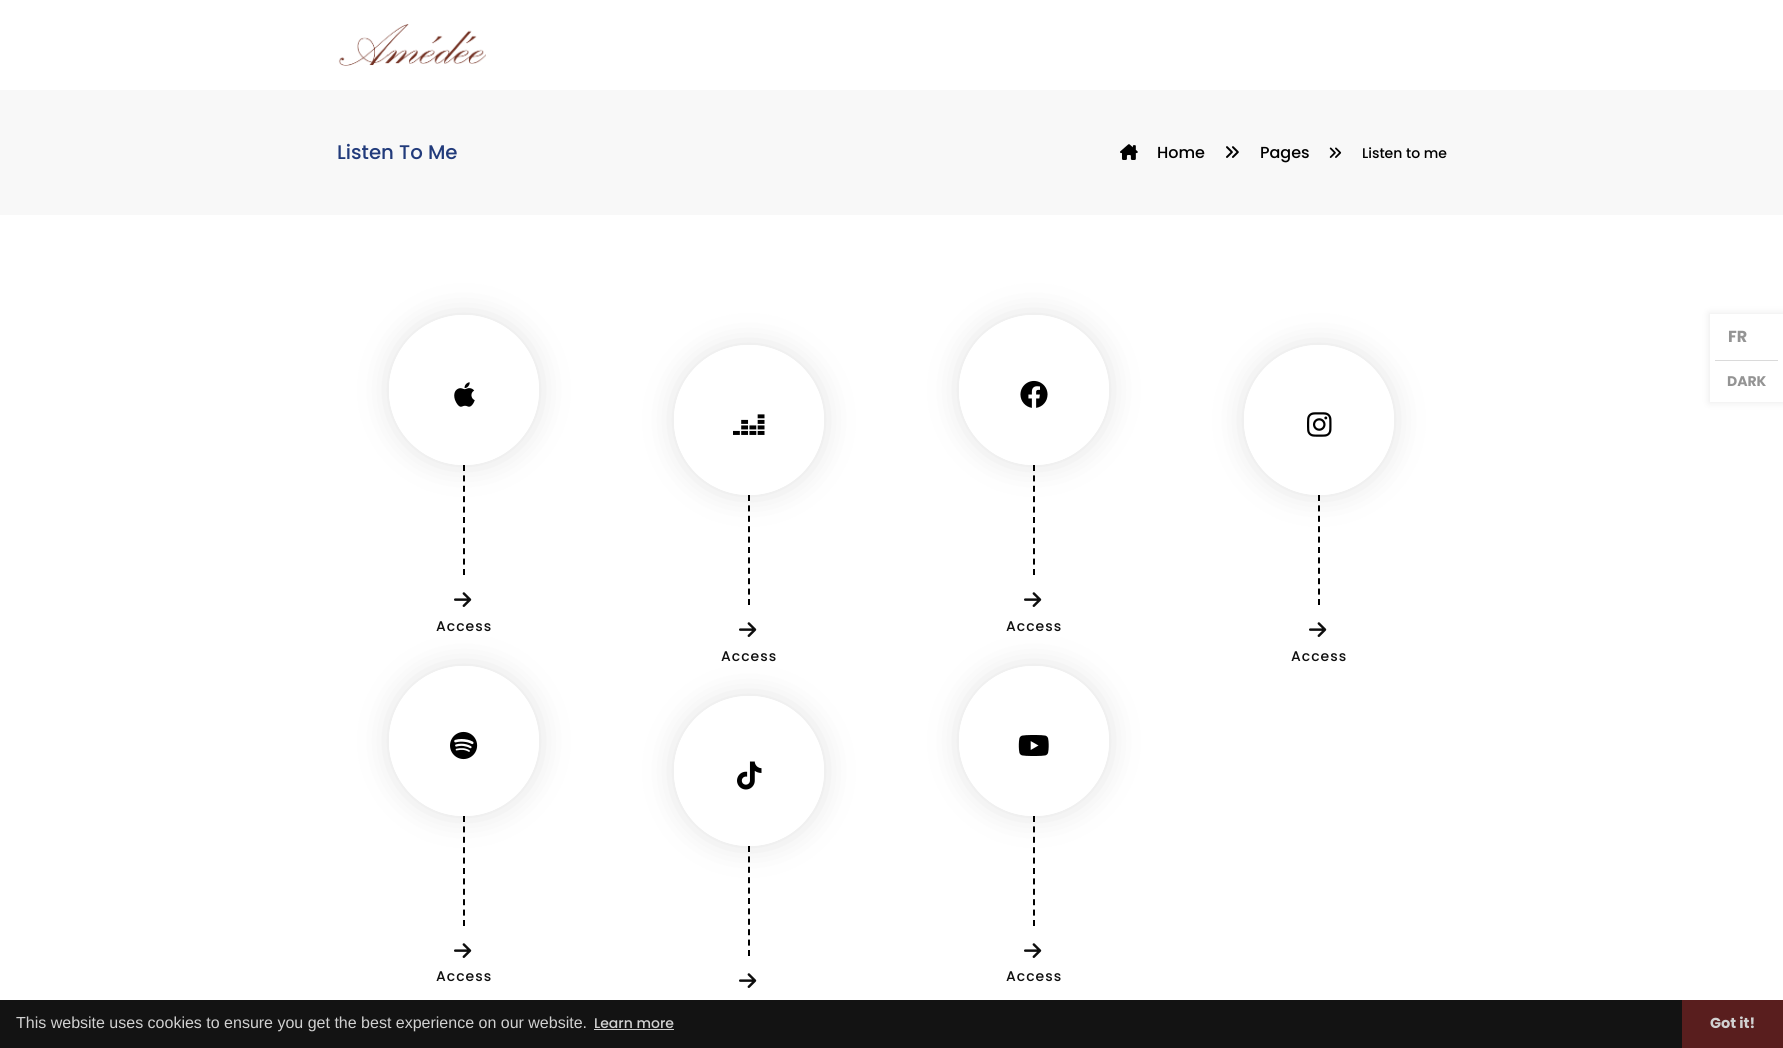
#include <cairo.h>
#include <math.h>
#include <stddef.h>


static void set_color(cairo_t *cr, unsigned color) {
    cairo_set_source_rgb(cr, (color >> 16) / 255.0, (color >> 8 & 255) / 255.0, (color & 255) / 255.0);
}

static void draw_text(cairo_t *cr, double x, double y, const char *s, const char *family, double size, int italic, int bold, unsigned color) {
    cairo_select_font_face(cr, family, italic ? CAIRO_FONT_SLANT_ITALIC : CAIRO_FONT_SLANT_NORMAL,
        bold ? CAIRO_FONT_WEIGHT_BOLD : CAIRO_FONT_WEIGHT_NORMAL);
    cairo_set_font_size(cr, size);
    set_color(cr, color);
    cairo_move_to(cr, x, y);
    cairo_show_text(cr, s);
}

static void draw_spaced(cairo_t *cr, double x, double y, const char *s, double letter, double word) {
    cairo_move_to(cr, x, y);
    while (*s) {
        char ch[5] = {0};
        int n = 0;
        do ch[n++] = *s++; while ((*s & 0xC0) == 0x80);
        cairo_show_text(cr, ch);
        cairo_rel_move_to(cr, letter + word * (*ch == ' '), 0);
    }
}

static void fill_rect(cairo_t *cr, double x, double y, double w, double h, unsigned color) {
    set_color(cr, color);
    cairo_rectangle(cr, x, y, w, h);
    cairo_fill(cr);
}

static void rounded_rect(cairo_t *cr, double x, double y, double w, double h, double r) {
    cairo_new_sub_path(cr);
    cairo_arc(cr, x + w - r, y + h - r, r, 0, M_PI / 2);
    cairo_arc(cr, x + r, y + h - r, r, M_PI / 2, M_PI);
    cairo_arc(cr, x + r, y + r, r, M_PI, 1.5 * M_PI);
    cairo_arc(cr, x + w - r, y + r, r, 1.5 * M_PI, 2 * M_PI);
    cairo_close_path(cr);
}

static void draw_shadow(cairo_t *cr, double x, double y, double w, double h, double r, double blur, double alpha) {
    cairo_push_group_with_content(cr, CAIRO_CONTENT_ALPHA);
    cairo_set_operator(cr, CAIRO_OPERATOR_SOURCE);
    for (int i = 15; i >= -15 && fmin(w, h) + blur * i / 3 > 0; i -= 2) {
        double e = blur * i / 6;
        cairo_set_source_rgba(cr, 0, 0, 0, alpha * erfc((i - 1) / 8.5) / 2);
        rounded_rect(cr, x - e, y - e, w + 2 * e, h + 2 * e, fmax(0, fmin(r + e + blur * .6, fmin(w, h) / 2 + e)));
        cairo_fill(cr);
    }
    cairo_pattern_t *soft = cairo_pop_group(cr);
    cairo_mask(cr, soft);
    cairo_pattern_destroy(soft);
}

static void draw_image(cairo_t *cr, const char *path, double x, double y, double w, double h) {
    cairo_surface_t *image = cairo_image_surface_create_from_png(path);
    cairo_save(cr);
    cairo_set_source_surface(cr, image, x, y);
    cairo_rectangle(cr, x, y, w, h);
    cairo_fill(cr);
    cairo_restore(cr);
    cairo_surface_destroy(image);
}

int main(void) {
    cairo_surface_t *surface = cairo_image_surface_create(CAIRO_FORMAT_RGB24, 1783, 1048);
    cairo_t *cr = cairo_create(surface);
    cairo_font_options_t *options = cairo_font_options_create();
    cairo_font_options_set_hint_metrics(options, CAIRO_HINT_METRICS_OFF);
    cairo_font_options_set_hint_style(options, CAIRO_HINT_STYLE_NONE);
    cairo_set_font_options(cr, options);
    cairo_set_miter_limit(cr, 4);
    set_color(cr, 0xFFFFFF);
    cairo_paint(cr);
    draw_image(cr, "assets/img1.png", 338, 24, 148, 42);
    fill_rect(cr, 0, 90, 1783, 125, 0xF8F8F8);
    draw_text(cr, 337, 159, "Listen To Me", "Poppins Medium", 19.75, 0, 0, 0x223B7B);
    draw_image(cr, "assets/img2.png", 1120, 144, 18, 16);
    draw_text(cr, 1157, 158, "Home", "Poppins Medium", 16, 0, 0, 0x000000);
    draw_image(cr, "assets/img3.png", 1226, 146, 13, 12);
    draw_text(cr, 1260, 158, "Pages", "Poppins Medium", 16, 0, 0, 0x000000);
    draw_image(cr, "assets/img4.png", 1329, 147, 13, 11);
    draw_text(cr, 1362, 158, "Listen to me", "Poppins Medium", 14, 0, 0, 0x000000);
    cairo_save(cr);
    cairo_set_fill_rule(cr, CAIRO_FILL_RULE_EVEN_ODD);
    cairo_new_path(cr);
    cairo_move_to(cr, 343, 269);
    cairo_line_to(cr, 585, 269);
    cairo_line_to(cr, 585, 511);
    cairo_line_to(cr, 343, 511);
    cairo_close_path(cr);
    cairo_move_to(cr, 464, 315);
    cairo_curve_to(cr, 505.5, 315, 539, 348.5, 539, 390);
    cairo_curve_to(cr, 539, 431.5, 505.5, 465, 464, 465);
    cairo_curve_to(cr, 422.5, 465, 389, 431.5, 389, 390);
    cairo_curve_to(cr, 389, 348.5, 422.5, 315, 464, 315);
    cairo_close_path(cr);
    cairo_clip(cr);
    set_color(cr, 0xE2E2E2);
    draw_shadow(cr, 389, 315, 150, 150, 75, 15, 1);
    cairo_restore(cr);
    cairo_arc(cr, 464, 390, 68.5, 0, 2 * M_PI);
    set_color(cr, 0xFFFFFF);
    cairo_set_line_width(cr, 13);
    cairo_stroke(cr);
    draw_image(cr, "assets/img5.png", 454, 382, 21, 25);
    cairo_new_path(cr);
    cairo_move_to(cr, 464, 465);
    cairo_line_to(cr, 464, 575);
    set_color(cr, 0x000000);
    cairo_set_line_width(cr, 2);
    cairo_set_dash(cr, (double[]){6, 4.4}, 2, 0);
    cairo_stroke(cr);
    draw_image(cr, "assets/img6.png", 454, 592, 18, 15);
    set_color(cr, 0x0E0E0E);
    draw_spaced(cr, 436, 631, "Access", 1, 0);
    cairo_save(cr);
    cairo_set_fill_rule(cr, CAIRO_FILL_RULE_EVEN_ODD);
    cairo_new_path(cr);
    cairo_move_to(cr, 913, 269);
    cairo_line_to(cr, 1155, 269);
    cairo_line_to(cr, 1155, 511);
    cairo_line_to(cr, 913, 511);
    cairo_close_path(cr);
    cairo_move_to(cr, 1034, 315);
    cairo_curve_to(cr, 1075.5, 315, 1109, 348.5, 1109, 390);
    cairo_curve_to(cr, 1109, 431.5, 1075.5, 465, 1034, 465);
    cairo_curve_to(cr, 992.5, 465, 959, 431.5, 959, 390);
    cairo_curve_to(cr, 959, 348.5, 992.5, 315, 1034, 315);
    cairo_close_path(cr);
    cairo_clip(cr);
    set_color(cr, 0xE2E2E2);
    draw_shadow(cr, 959, 315, 150, 150, 75, 15, 1);
    cairo_restore(cr);
    cairo_arc(cr, 1034, 390, 68.5, 0, 2 * M_PI);
    set_color(cr, 0xFFFFFF);
    cairo_set_line_width(cr, 13);
    cairo_set_dash(cr, NULL, 0, 0);
    cairo_stroke(cr);
    draw_image(cr, "assets/img7.png", 1020, 380, 28, 28);
    cairo_new_path(cr);
    cairo_move_to(cr, 1034, 465);
    cairo_line_to(cr, 1034, 575);
    set_color(cr, 0x000000);
    cairo_set_line_width(cr, 2);
    cairo_set_dash(cr, (double[]){6, 4.4}, 2, 0);
    cairo_stroke(cr);
    draw_image(cr, "assets/img6.png", 1024, 592, 18, 15);
    set_color(cr, 0x0E0E0E);
    draw_spaced(cr, 1006, 631, "Access", 1, 0);
    cairo_save(cr);
    cairo_set_fill_rule(cr, CAIRO_FILL_RULE_EVEN_ODD);
    cairo_new_path(cr);
    cairo_move_to(cr, 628, 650);
    cairo_line_to(cr, 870, 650);
    cairo_line_to(cr, 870, 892);
    cairo_line_to(cr, 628, 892);
    cairo_close_path(cr);
    cairo_move_to(cr, 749, 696);
    cairo_curve_to(cr, 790.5, 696, 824, 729.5, 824, 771);
    cairo_curve_to(cr, 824, 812.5, 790.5, 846, 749, 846);
    cairo_curve_to(cr, 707.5, 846, 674, 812.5, 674, 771);
    cairo_curve_to(cr, 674, 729.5, 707.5, 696, 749, 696);
    cairo_close_path(cr);
    cairo_clip(cr);
    set_color(cr, 0xE2E2E2);
    draw_shadow(cr, 674, 696, 150, 150, 75, 15, 1);
    cairo_restore(cr);
    cairo_arc(cr, 749, 771, 68.5, 0, 2 * M_PI);
    set_color(cr, 0xFFFFFF);
    cairo_set_line_width(cr, 13);
    cairo_set_dash(cr, NULL, 0, 0);
    cairo_stroke(cr);
    draw_image(cr, "assets/img8.png", 737, 761, 25, 29);
    cairo_new_path(cr);
    cairo_move_to(cr, 749, 846);
    cairo_line_to(cr, 749, 956);
    set_color(cr, 0x000000);
    cairo_set_line_width(cr, 2);
    cairo_set_dash(cr, (double[]){6, 4.4}, 2, 0);
    cairo_stroke(cr);
    draw_image(cr, "assets/img6.png", 739, 973, 18, 15);
    cairo_save(cr);
    cairo_set_fill_rule(cr, CAIRO_FILL_RULE_EVEN_ODD);
    cairo_new_path(cr);
    cairo_move_to(cr, 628, 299);
    cairo_line_to(cr, 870, 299);
    cairo_line_to(cr, 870, 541);
    cairo_line_to(cr, 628, 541);
    cairo_close_path(cr);
    cairo_move_to(cr, 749, 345);
    cairo_curve_to(cr, 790.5, 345, 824, 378.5, 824, 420);
    cairo_curve_to(cr, 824, 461.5, 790.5, 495, 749, 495);
    cairo_curve_to(cr, 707.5, 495, 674, 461.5, 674, 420);
    cairo_curve_to(cr, 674, 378.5, 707.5, 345, 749, 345);
    cairo_close_path(cr);
    cairo_clip(cr);
    set_color(cr, 0xE2E2E2);
    draw_shadow(cr, 674, 345, 150, 150, 75, 15, 1);
    cairo_restore(cr);
    cairo_arc(cr, 749, 420, 68.5, 0, 2 * M_PI);
    set_color(cr, 0xFFFFFF);
    cairo_set_line_width(cr, 13);
    cairo_set_dash(cr, NULL, 0, 0);
    cairo_stroke(cr);
    draw_image(cr, "assets/img9.png", 733, 414, 32, 21);
    cairo_new_path(cr);
    cairo_move_to(cr, 749, 495);
    cairo_line_to(cr, 749, 605);
    set_color(cr, 0x000000);
    cairo_set_line_width(cr, 2);
    cairo_set_dash(cr, (double[]){6, 4.4}, 2, 0);
    cairo_stroke(cr);
    draw_image(cr, "assets/img6.png", 739, 622, 18, 15);
    set_color(cr, 0x0E0E0E);
    draw_spaced(cr, 721, 661, "Access", 1, 0);
    cairo_save(cr);
    cairo_set_fill_rule(cr, CAIRO_FILL_RULE_EVEN_ODD);
    cairo_new_path(cr);
    cairo_move_to(cr, 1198, 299);
    cairo_line_to(cr, 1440, 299);
    cairo_line_to(cr, 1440, 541);
    cairo_line_to(cr, 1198, 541);
    cairo_close_path(cr);
    cairo_move_to(cr, 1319, 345);
    cairo_curve_to(cr, 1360.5, 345, 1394, 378.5, 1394, 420);
    cairo_curve_to(cr, 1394, 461.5, 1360.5, 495, 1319, 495);
    cairo_curve_to(cr, 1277.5, 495, 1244, 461.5, 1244, 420);
    cairo_curve_to(cr, 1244, 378.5, 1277.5, 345, 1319, 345);
    cairo_close_path(cr);
    cairo_clip(cr);
    set_color(cr, 0xE2E2E2);
    draw_shadow(cr, 1244, 345, 150, 150, 75, 15, 1);
    cairo_restore(cr);
    cairo_arc(cr, 1319, 420, 68.5, 0, 2 * M_PI);
    set_color(cr, 0xFFFFFF);
    cairo_set_line_width(cr, 13);
    cairo_set_dash(cr, NULL, 0, 0);
    cairo_stroke(cr);
    draw_image(cr, "assets/img10.png", 1307, 412, 25, 25);
    cairo_new_path(cr);
    cairo_move_to(cr, 1319, 495);
    cairo_line_to(cr, 1319, 605);
    set_color(cr, 0x000000);
    cairo_set_line_width(cr, 2);
    cairo_set_dash(cr, (double[]){6, 4.4}, 2, 0);
    cairo_stroke(cr);
    draw_image(cr, "assets/img6.png", 1309, 622, 18, 15);
    set_color(cr, 0x0E0E0E);
    draw_spaced(cr, 1291, 661, "Access", 1, 0);
    cairo_save(cr);
    cairo_set_fill_rule(cr, CAIRO_FILL_RULE_EVEN_ODD);
    cairo_new_path(cr);
    cairo_move_to(cr, 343, 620);
    cairo_line_to(cr, 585, 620);
    cairo_line_to(cr, 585, 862);
    cairo_line_to(cr, 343, 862);
    cairo_close_path(cr);
    cairo_move_to(cr, 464, 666);
    cairo_curve_to(cr, 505.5, 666, 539, 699.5, 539, 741);
    cairo_curve_to(cr, 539, 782.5, 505.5, 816, 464, 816);
    cairo_curve_to(cr, 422.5, 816, 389, 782.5, 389, 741);
    cairo_curve_to(cr, 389, 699.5, 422.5, 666, 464, 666);
    cairo_close_path(cr);
    cairo_clip(cr);
    set_color(cr, 0xE2E2E2);
    draw_shadow(cr, 389, 666, 150, 150, 75, 15, 1);
    cairo_restore(cr);
    cairo_arc(cr, 464, 741, 68.5, 0, 2 * M_PI);
    set_color(cr, 0xFFFFFF);
    cairo_set_line_width(cr, 13);
    cairo_set_dash(cr, NULL, 0, 0);
    cairo_stroke(cr);
    draw_image(cr, "assets/img11.png", 450, 731, 28, 29);
    cairo_new_path(cr);
    cairo_move_to(cr, 464, 816);
    cairo_line_to(cr, 464, 926);
    set_color(cr, 0x000000);
    cairo_set_line_width(cr, 2);
    cairo_set_dash(cr, (double[]){6, 4.4}, 2, 0);
    cairo_stroke(cr);
    draw_image(cr, "assets/img6.png", 454, 943, 18, 15);
    set_color(cr, 0x0E0E0E);
    draw_spaced(cr, 436, 981, "Access", 1, 0);
    cairo_save(cr);
    cairo_set_fill_rule(cr, CAIRO_FILL_RULE_EVEN_ODD);
    cairo_new_path(cr);
    cairo_move_to(cr, 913, 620);
    cairo_line_to(cr, 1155, 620);
    cairo_line_to(cr, 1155, 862);
    cairo_line_to(cr, 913, 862);
    cairo_close_path(cr);
    cairo_move_to(cr, 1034, 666);
    cairo_curve_to(cr, 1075.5, 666, 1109, 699.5, 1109, 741);
    cairo_curve_to(cr, 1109, 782.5, 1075.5, 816, 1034, 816);
    cairo_curve_to(cr, 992.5, 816, 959, 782.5, 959, 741);
    cairo_curve_to(cr, 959, 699.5, 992.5, 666, 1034, 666);
    cairo_close_path(cr);
    cairo_clip(cr);
    set_color(cr, 0xE2E2E2);
    draw_shadow(cr, 959, 666, 150, 150, 75, 15, 1);
    cairo_restore(cr);
    cairo_arc(cr, 1034, 741, 68.5, 0, 2 * M_PI);
    set_color(cr, 0xFFFFFF);
    cairo_set_line_width(cr, 13);
    cairo_set_dash(cr, NULL, 0, 0);
    cairo_stroke(cr);
    draw_image(cr, "assets/img12.png", 1018, 735, 31, 21);
    cairo_new_path(cr);
    cairo_move_to(cr, 1034, 816);
    cairo_line_to(cr, 1034, 926);
    set_color(cr, 0x000000);
    cairo_set_line_width(cr, 2);
    cairo_set_dash(cr, (double[]){6, 4.4}, 2, 0);
    cairo_stroke(cr);
    draw_image(cr, "assets/img6.png", 1024, 943, 18, 15);
    set_color(cr, 0x0E0E0E);
    draw_spaced(cr, 1006, 981, "Access", 1, 0);
    cairo_save(cr);
    cairo_set_fill_rule(cr, CAIRO_FILL_RULE_EVEN_ODD);
    cairo_new_path(cr);
    cairo_move_to(cr, 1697, 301);
    cairo_line_to(cr, 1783, 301);
    cairo_line_to(cr, 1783, 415);
    cairo_line_to(cr, 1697, 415);
    cairo_close_path(cr);
    cairo_move_to(cr, 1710, 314);
    cairo_line_to(cr, 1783, 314);
    cairo_line_to(cr, 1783, 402);
    cairo_line_to(cr, 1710, 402);
    cairo_close_path(cr);
    cairo_clip(cr);
    set_color(cr, 0x9E9E9E);
    draw_shadow(cr, 1709, 313, 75, 90, 0, 3.5, 0.2);
    cairo_restore(cr);
    fill_rect(cr, 1715, 360, 63, 1, 0xDADADA);
    draw_text(cr, 1728, 342, "FR", "Poppins", 16, 0, 1, 0x949494);
    draw_text(cr, 1727, 386, "DARK", "Poppins", 14, 0, 1, 0x949494);
    fill_rect(cr, 0, 1000, 1682, 48, 0x131313);
    draw_text(cr, 16, 1028, "This website uses cookies to ensure you get the best experience on our website.", "Liberation Sans", 16, 0, 0, 0xD1D1D1);
    draw_text(cr, 594, 1028, "Learn more", "Poppins Medium", 14, 0, 0, 0xD1D1D1);
    fill_rect(cr, 594, 1029, 80, 1, 0xD0D0D0);
    fill_rect(cr, 1682, 1000, 101, 48, 0x591E1E);
    draw_text(cr, 1710, 1028, "Got it!", "Poppins", 14.5, 0, 1, 0xD1D1D1);
    cairo_surface_write_to_png(surface, "output.png");
    cairo_font_options_destroy(options);
    cairo_destroy(cr);
    cairo_surface_destroy(surface);
    return 0;
}
